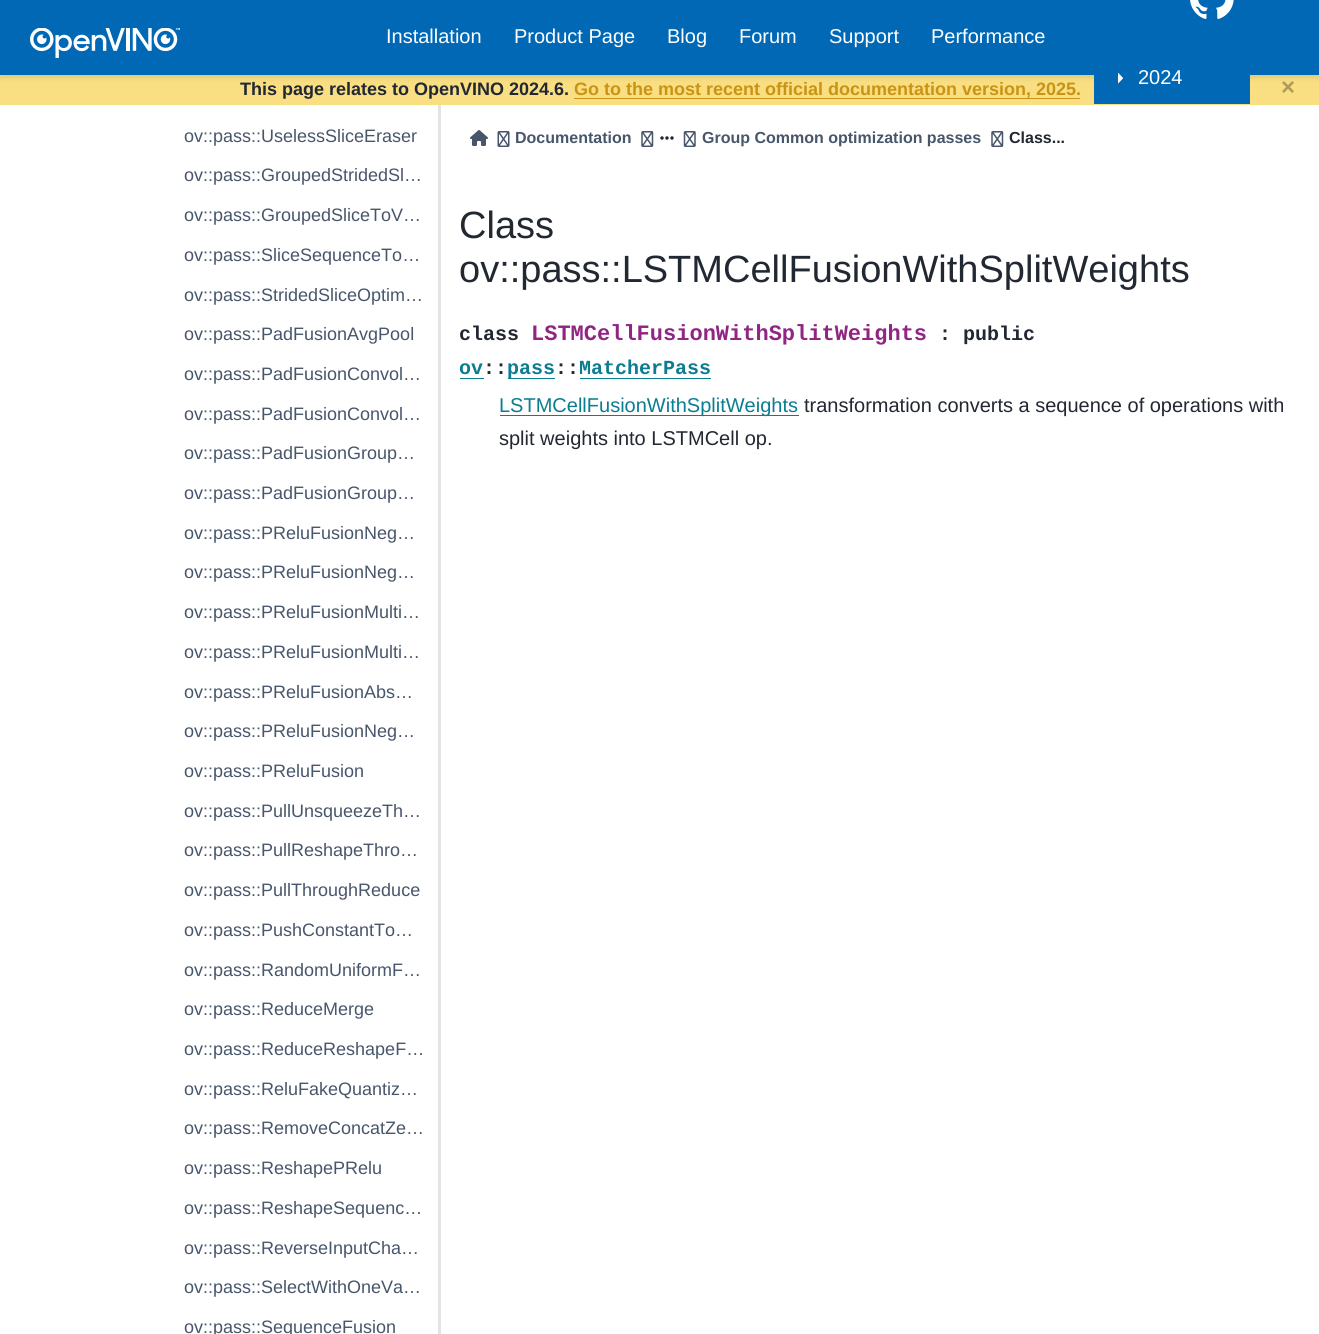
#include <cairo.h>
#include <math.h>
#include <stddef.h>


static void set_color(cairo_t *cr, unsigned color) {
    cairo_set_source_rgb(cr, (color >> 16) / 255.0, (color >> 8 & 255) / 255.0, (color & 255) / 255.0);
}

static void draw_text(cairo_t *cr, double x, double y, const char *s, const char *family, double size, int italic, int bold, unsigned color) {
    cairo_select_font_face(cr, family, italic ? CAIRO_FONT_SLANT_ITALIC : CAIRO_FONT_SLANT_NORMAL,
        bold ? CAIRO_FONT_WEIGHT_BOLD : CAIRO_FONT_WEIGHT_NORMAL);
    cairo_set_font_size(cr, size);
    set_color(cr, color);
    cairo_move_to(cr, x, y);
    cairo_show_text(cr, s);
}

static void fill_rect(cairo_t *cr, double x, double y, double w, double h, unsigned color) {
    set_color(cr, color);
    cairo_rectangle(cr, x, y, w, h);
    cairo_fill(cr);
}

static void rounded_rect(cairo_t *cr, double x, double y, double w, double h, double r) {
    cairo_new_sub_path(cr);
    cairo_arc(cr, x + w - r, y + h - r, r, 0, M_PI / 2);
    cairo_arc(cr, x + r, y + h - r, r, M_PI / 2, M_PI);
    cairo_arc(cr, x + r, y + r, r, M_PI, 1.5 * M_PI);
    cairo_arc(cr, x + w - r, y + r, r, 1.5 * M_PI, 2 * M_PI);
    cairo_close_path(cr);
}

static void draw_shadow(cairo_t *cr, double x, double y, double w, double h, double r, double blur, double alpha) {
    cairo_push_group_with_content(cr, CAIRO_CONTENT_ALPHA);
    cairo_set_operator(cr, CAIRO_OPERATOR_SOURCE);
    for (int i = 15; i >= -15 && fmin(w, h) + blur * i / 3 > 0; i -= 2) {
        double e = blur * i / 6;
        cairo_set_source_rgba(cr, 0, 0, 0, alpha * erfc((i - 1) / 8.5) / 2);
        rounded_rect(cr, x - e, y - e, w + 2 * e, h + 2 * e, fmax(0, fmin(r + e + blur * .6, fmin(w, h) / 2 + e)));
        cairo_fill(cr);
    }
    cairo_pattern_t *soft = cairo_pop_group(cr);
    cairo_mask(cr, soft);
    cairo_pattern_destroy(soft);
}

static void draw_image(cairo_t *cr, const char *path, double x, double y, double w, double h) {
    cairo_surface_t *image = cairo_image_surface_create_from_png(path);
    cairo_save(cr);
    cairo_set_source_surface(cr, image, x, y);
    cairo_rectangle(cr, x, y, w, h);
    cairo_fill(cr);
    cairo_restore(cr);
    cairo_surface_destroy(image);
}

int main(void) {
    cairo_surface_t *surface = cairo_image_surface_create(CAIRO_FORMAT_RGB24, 1319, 1334);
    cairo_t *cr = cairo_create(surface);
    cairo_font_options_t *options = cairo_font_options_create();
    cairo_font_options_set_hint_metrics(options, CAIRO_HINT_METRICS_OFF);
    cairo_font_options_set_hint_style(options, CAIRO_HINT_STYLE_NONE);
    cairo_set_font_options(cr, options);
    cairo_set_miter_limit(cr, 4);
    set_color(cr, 0xFFFFFF);
    cairo_paint(cr);
    fill_rect(cr, 0, 75, 1319, 30, 0xF9DE82);
    set_color(cr, 0x000000);
    draw_shadow(cr, 0, 3, 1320, 75, 0, 2.5, 0.1);
    fill_rect(cr, 0, 0, 1319, 75, 0x0068B5);
    draw_image(cr, "assets/img1.png", 30, 28, 150, 30);
    draw_text(cr, 386, 43, "Installation", "Liberation Sans", 20, 0, 0, 0xFFFFFF);
    draw_text(cr, 514, 43, "Product Page", "Liberation Sans", 20, 0, 0, 0xFFFFFF);
    draw_text(cr, 667, 43, "Blog", "Liberation Sans", 20, 0, 0, 0xFFFFFF);
    draw_text(cr, 739, 43, "Forum", "Liberation Sans", 20, 0, 0, 0xFFFFFF);
    draw_text(cr, 829, 43, "Support", "Liberation Sans", 20, 0, 0, 0xFFFFFF);
    draw_text(cr, 931, 43, "Performance", "Liberation Sans", 20, 0, 0, 0xFFFFFF);
    draw_image(cr, "assets/img2.png", 1190, 0, 44, 19);
    fill_rect(cr, 1094, 75, 156, 29, 0x0068B5);
    draw_image(cr, "assets/img3.png", 1118, 73, 5, 11);
    draw_text(cr, 1138, 84, "2024", "Liberation Sans", 20, 0, 0, 0xFFFFFF);
    draw_text(cr, 240, 95, "This page relates to OpenVINO 2024.6.", "Liberation Sans", 18, 0, 1, 0x222832);
    draw_text(cr, 574, 95, "Go to the most recent official documentation version, 2025.", "Liberation Sans", 18, 0, 1, 0xC99414);
    fill_rect(cr, 574, 98, 506, 1, 0xC99414);
    draw_text(cr, 1281, 95, "×", "Liberation Sans", 24, 0, 1, 0xAE9B5B);
    draw_text(cr, 184, 142, "ov::pass::UselessSliceEraser", "Liberation Sans", 18, 0, 0, 0x48566B);
    draw_text(cr, 184, 181, "ov::pass::GroupedStridedSl…", "Liberation Sans", 18, 0, 0, 0x48566B);
    draw_text(cr, 184, 221, "ov::pass::GroupedSliceToV…", "Liberation Sans", 18, 0, 0, 0x48566B);
    draw_text(cr, 184, 261, "ov::pass::SliceSequenceTo…", "Liberation Sans", 18, 0, 0, 0x48566B);
    draw_text(cr, 184, 301, "ov::pass::StridedSliceOptim…", "Liberation Sans", 18, 0, 0, 0x48566B);
    draw_text(cr, 184, 340, "ov::pass::PadFusionAvgPool", "Liberation Sans", 18, 0, 0, 0x48566B);
    draw_text(cr, 184, 380, "ov::pass::PadFusionConvol…", "Liberation Sans", 18, 0, 0, 0x48566B);
    draw_text(cr, 184, 420, "ov::pass::PadFusionConvol…", "Liberation Sans", 18, 0, 0, 0x48566B);
    draw_text(cr, 184, 459, "ov::pass::PadFusionGroup…", "Liberation Sans", 18, 0, 0, 0x48566B);
    draw_text(cr, 184, 499, "ov::pass::PadFusionGroup…", "Liberation Sans", 18, 0, 0, 0x48566B);
    draw_text(cr, 184, 539, "ov::pass::PReluFusionNeg…", "Liberation Sans", 18, 0, 0, 0x48566B);
    draw_text(cr, 184, 578, "ov::pass::PReluFusionNeg…", "Liberation Sans", 18, 0, 0, 0x48566B);
    draw_text(cr, 184, 618, "ov::pass::PReluFusionMulti…", "Liberation Sans", 18, 0, 0, 0x48566B);
    draw_text(cr, 184, 658, "ov::pass::PReluFusionMulti…", "Liberation Sans", 18, 0, 0, 0x48566B);
    draw_text(cr, 184, 698, "ov::pass::PReluFusionAbs…", "Liberation Sans", 18, 0, 0, 0x48566B);
    draw_text(cr, 184, 737, "ov::pass::PReluFusionNeg…", "Liberation Sans", 18, 0, 0, 0x48566B);
    draw_text(cr, 184, 777, "ov::pass::PReluFusion", "Liberation Sans", 18, 0, 0, 0x48566B);
    draw_text(cr, 184, 817, "ov::pass::PullUnsqueezeTh…", "Liberation Sans", 18, 0, 0, 0x48566B);
    draw_text(cr, 184, 856, "ov::pass::PullReshapeThro…", "Liberation Sans", 18, 0, 0, 0x48566B);
    draw_text(cr, 184, 896, "ov::pass::PullThroughReduce", "Liberation Sans", 18, 0, 0, 0x48566B);
    draw_text(cr, 184, 936, "ov::pass::PushConstantTo…", "Liberation Sans", 18, 0, 0, 0x48566B);
    draw_text(cr, 184, 976, "ov::pass::RandomUniformF…", "Liberation Sans", 18, 0, 0, 0x48566B);
    draw_text(cr, 184, 1015, "ov::pass::ReduceMerge", "Liberation Sans", 18, 0, 0, 0x48566B);
    draw_text(cr, 184, 1055, "ov::pass::ReduceReshapeF…", "Liberation Sans", 18, 0, 0, 0x48566B);
    draw_text(cr, 184, 1095, "ov::pass::ReluFakeQuantiz…", "Liberation Sans", 18, 0, 0, 0x48566B);
    draw_text(cr, 184, 1134, "ov::pass::RemoveConcatZe…", "Liberation Sans", 18, 0, 0, 0x48566B);
    draw_text(cr, 184, 1174, "ov::pass::ReshapePRelu", "Liberation Sans", 18, 0, 0, 0x48566B);
    draw_text(cr, 184, 1214, "ov::pass::ReshapeSequenc…", "Liberation Sans", 18, 0, 0, 0x48566B);
    draw_text(cr, 184, 1254, "ov::pass::ReverseInputCha…", "Liberation Sans", 18, 0, 0, 0x48566B);
    draw_text(cr, 184, 1293, "ov::pass::SelectWithOneVa…", "Liberation Sans", 18, 0, 0, 0x48566B);
    draw_text(cr, 184, 1333, "ov::pass::SequenceFusion", "Liberation Sans", 18, 0, 0, 0x48566B);
    fill_rect(cr, 438, 105, 3, 1229, 0xE3E3E3);
    draw_image(cr, "assets/img4.png", 470, 130, 18, 16);
    draw_image(cr, "assets/img5.png", 497, 131, 13, 16);
    draw_text(cr, 515, 143, "Documentation", "Liberation Sans", 16, 0, 1, 0x48566B);
    draw_image(cr, "assets/img6.png", 641, 131, 13, 16);
    draw_image(cr, "assets/img7.png", 660, 136, 14, 4);
    draw_image(cr, "assets/img8.png", 683, 131, 13, 16);
    draw_text(cr, 702, 143, "Group Common optimization passes", "Liberation Sans", 16, 0, 1, 0x48566B);
    draw_image(cr, "assets/img6.png", 991, 131, 13, 16);
    draw_text(cr, 1009, 143, "Class...", "Liberation Sans", 16, 0, 1, 0x222832);
    draw_text(cr, 459, 238, "Class", "Liberation Sans", 38, 0, 0, 0x222832);
    draw_text(cr, 459, 282, "ov::pass::LSTMCellFusionWithSplitWeights", "Liberation Sans", 38, 0, 0, 0x222832);
    draw_text(cr, 459, 340, "class", "Liberation Mono", 20, 0, 1, 0x222832);
    draw_text(cr, 531, 340, "LSTMCellFusionWithSplitWeights", "Liberation Mono", 22, 0, 1, 0x912583);
    draw_text(cr, 939, 340, ": public", "Liberation Mono", 20, 0, 1, 0x222832);
    draw_text(cr, 459, 374, "ov", "Liberation Mono", 20, 0, 1, 0x0A7D91);
    fill_rect(cr, 460, 378, 24, 1, 0x0A7D91);
    draw_text(cr, 483, 374, "::", "Liberation Mono", 20, 0, 1, 0x222832);
    fill_rect(cr, 508, 378, 47, 1, 0x0A7D91);
    draw_text(cr, 507, 374, "pass", "Liberation Mono", 20, 0, 1, 0x0A7D91);
    draw_text(cr, 555, 374, "::", "Liberation Mono", 20, 0, 1, 0x222832);
    draw_text(cr, 579, 374, "MatcherPass", "Liberation Mono", 20, 0, 1, 0x0A7D91);
    fill_rect(cr, 580, 378, 131, 1, 0x0A7D91);
    fill_rect(cr, 500, 415, 299, 1, 0x0A7D91);
    draw_text(cr, 499, 412, "LSTMCellFusionWithSplitWeights", "Liberation Sans", 20, 0, 0, 0x0A7D91);
    draw_text(cr, 804, 412, "transformation converts a sequence of operations with", "Liberation Sans", 20, 0, 0, 0x222832);
    draw_text(cr, 499, 445, "split weights into LSTMCell op.", "Liberation Sans", 20, 0, 0, 0x222832);
    cairo_surface_write_to_png(surface, "output.png");
    cairo_font_options_destroy(options);
    cairo_destroy(cr);
    cairo_surface_destroy(surface);
    return 0;
}
